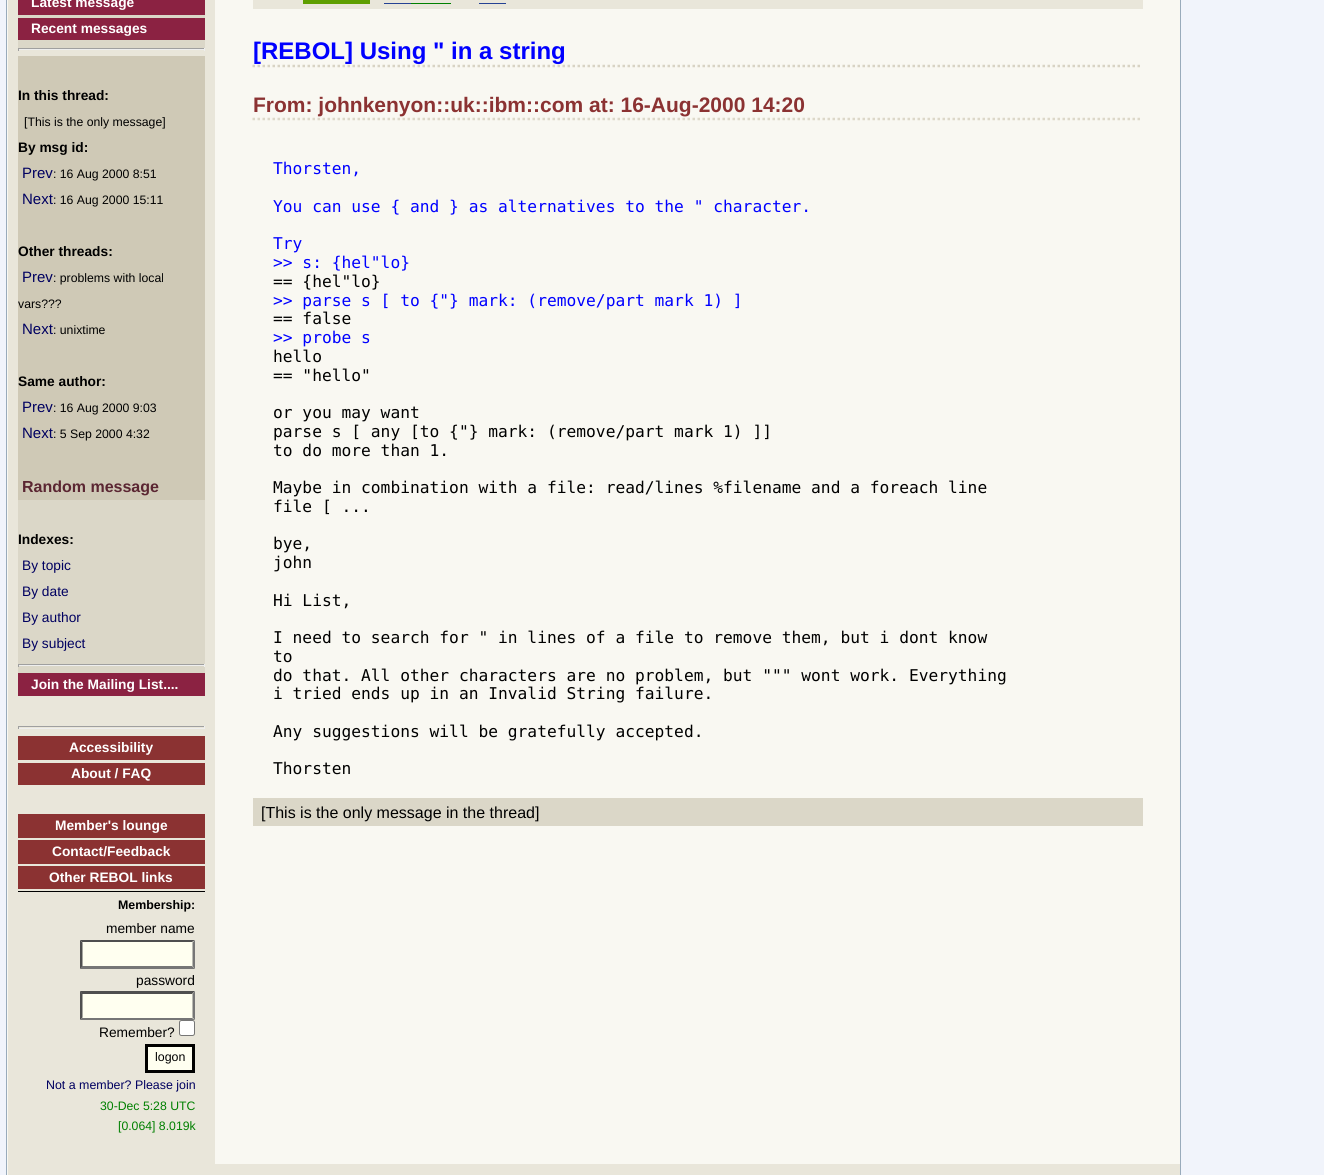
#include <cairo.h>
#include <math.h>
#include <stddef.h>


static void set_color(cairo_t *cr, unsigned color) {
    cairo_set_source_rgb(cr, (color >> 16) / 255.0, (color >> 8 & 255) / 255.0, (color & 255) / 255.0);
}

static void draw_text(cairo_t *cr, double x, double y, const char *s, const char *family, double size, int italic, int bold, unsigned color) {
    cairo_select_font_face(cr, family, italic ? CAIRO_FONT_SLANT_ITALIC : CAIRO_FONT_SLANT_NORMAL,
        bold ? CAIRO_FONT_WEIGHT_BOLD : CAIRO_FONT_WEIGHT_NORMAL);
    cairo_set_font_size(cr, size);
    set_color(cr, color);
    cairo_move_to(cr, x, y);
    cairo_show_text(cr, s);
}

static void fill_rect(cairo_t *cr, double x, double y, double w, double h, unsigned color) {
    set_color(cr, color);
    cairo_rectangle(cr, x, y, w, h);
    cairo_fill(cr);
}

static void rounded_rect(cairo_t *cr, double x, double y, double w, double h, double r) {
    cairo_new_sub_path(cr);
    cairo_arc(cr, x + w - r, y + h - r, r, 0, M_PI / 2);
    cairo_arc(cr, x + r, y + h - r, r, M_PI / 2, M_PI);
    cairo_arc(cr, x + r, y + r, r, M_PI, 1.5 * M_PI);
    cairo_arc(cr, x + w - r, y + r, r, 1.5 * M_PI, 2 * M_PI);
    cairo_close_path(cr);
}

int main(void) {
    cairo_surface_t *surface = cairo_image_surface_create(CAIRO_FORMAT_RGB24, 1324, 1175);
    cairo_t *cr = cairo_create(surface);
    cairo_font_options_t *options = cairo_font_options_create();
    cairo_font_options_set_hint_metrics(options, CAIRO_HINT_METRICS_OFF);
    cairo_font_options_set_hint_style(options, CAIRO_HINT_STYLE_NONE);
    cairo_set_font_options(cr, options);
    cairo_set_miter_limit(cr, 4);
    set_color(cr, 0xF1F4FB);
    cairo_paint(cr);
    set_color(cr, 0xF9F8F2);
    cairo_rectangle(cr, 6.5, -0.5, 1174, 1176);
    cairo_fill_preserve(cr);
    set_color(cr, 0x99ABBB);
    cairo_set_line_width(cr, 1);
    cairo_stroke(cr);
    fill_rect(cr, 8, 0, 207, 1164, 0xE9E6DA);
    fill_rect(cr, 18, 15, 187, 33, 0xDBD7C8);
    fill_rect(cr, 18, 0, 187, 15, 0x8B2242);
    draw_text(cr, 31, 7, "Latest message", "Liberation Sans", 13.75, 0, 1, 0xFFFFFF);
    fill_rect(cr, 18, 18, 187, 22, 0x8B2242);
    draw_text(cr, 31, 33, "Recent messages", "Liberation Sans", 13.75, 0, 1, 0xFFFFFF);
    fill_rect(cr, 18, 48, 187, 1, 0x9F9F9F);
    fill_rect(cr, 204, 48, 1, 3, 0xEEEEEE);
    fill_rect(cr, 18, 49, 187, 1, 0xEEEEEE);
    fill_rect(cr, 18, 48, 1, 3, 0x9F9F9F);
    fill_rect(cr, 18, 56, 187, 444, 0xCFC9B6);
    draw_text(cr, 18, 100, "In this thread:", "Liberation Sans", 13.75, 0, 1, 0x000000);
    draw_text(cr, 24, 126, "[This is the only message]", "Liberation Sans", 12.25, 0, 0, 0x000000);
    draw_text(cr, 18, 152, "By msg id:", "Liberation Sans", 13.75, 0, 1, 0x000000);
    draw_text(cr, 22, 178, "Prev", "Liberation Sans", 15, 0, 0, 0x000060);
    draw_text(cr, 53, 178, ": 16 Aug 2000 8:51", "Liberation Sans", 12.25, 0, 0, 0x000000);
    draw_text(cr, 22, 204, "Next", "Liberation Sans", 15, 0, 0, 0x000060);
    draw_text(cr, 53, 204, ": 16 Aug 2000 15:11", "Liberation Sans", 12.25, 0, 0, 0x000000);
    draw_text(cr, 18, 256, "Other threads:", "Liberation Sans", 13.75, 0, 1, 0x000000);
    draw_text(cr, 22, 282, "Prev", "Liberation Sans", 15, 0, 0, 0x000060);
    draw_text(cr, 53, 282, ": problems with local", "Liberation Sans", 12.25, 0, 0, 0x000000);
    draw_text(cr, 18, 308, "vars?\077?", "Liberation Sans", 12.25, 0, 0, 0x000000);
    draw_text(cr, 22, 334, "Next", "Liberation Sans", 15, 0, 0, 0x000060);
    draw_text(cr, 53, 334, ": unixtime", "Liberation Sans", 12.25, 0, 0, 0x000000);
    draw_text(cr, 18, 386, "Same author:", "Liberation Sans", 13.75, 0, 1, 0x000000);
    draw_text(cr, 22, 412, "Prev", "Liberation Sans", 15, 0, 0, 0x000060);
    draw_text(cr, 53, 412, ": 16 Aug 2000 9:03", "Liberation Sans", 12.25, 0, 0, 0x000000);
    draw_text(cr, 22, 438, "Next", "Liberation Sans", 15, 0, 0, 0x000060);
    draw_text(cr, 53, 438, ": 5 Sep 2000 4:32", "Liberation Sans", 12.25, 0, 0, 0x000000);
    draw_text(cr, 22, 492, "Random message", "Liberation Sans", 16, 0, 1, 0x5B2632);
    fill_rect(cr, 18, 500, 187, 173, 0xDBD7C8);
    draw_text(cr, 18, 544, "Indexes:", "Liberation Sans", 13.75, 0, 1, 0x000000);
    draw_text(cr, 22, 570, "By topic", "Liberation Sans", 13.75, 0, 0, 0x000060);
    draw_text(cr, 22, 596, "By date", "Liberation Sans", 13.75, 0, 0, 0x000060);
    draw_text(cr, 22, 622, "By author", "Liberation Sans", 13.75, 0, 0, 0x000060);
    draw_text(cr, 22, 648, "By subject", "Liberation Sans", 13.75, 0, 0, 0x000060);
    fill_rect(cr, 18, 664, 187, 1, 0x9F9F9F);
    fill_rect(cr, 204, 664, 1, 3, 0xEEEEEE);
    fill_rect(cr, 18, 665, 187, 1, 0xEEEEEE);
    fill_rect(cr, 18, 664, 1, 3, 0x9F9F9F);
    fill_rect(cr, 18, 673, 187, 23, 0x8B2242);
    draw_text(cr, 31, 689, "Join the Mailing List....", "Liberation Sans", 13.75, 0, 1, 0xFFFFFF);
    fill_rect(cr, 18, 891, 187, 1, 0x000000);
    fill_rect(cr, 18, 726, 187, 1, 0x9F9F9F);
    fill_rect(cr, 204, 726, 1, 3, 0xEEEEEE);
    fill_rect(cr, 18, 728, 187, 1, 0xEEEEEE);
    fill_rect(cr, 18, 726, 1, 3, 0x9F9F9F);
    fill_rect(cr, 18, 736, 187, 24, 0x8B3232);
    draw_text(cr, 69, 752, "Accessibility", "Liberation Sans", 13.75, 0, 1, 0xFFFFFF);
    fill_rect(cr, 18, 763, 187, 22, 0x8B3232);
    draw_text(cr, 71, 778, "About / FAQ", "Liberation Sans", 13.75, 0, 1, 0xFFFFFF);
    fill_rect(cr, 18, 814, 187, 24, 0x8B3232);
    draw_text(cr, 55, 830, "Member's lounge", "Liberation Sans", 13.75, 0, 1, 0xFFFFFF);
    fill_rect(cr, 18, 840, 187, 24, 0x8B3232);
    draw_text(cr, 52, 856, "Contact/Feedback", "Liberation Sans", 13.75, 0, 1, 0xFFFFFF);
    fill_rect(cr, 18, 866, 187, 23, 0x8B3232);
    draw_text(cr, 49, 882, "Other REBOL links", "Liberation Sans", 13.75, 0, 1, 0xFFFFFF);
    draw_text(cr, 118, 909, "Membership:", "Liberation Sans", 12.4, 0, 1, 0x000000);
    draw_text(cr, 106, 933, "member name", "Liberation Sans", 13.75, 0, 0, 0x000000);
    fill_rect(cr, 80, 940, 115, 29, 0xFFFFF0);
    set_color(cr, 0x4F4F4F);
    cairo_new_path(cr);
    cairo_move_to(cr, 80, 940);
    cairo_line_to(cr, 195, 940);
    cairo_line_to(cr, 192, 942);
    cairo_line_to(cr, 82, 942);
    cairo_close_path(cr);
    cairo_fill(cr);
    set_color(cr, 0x767676);
    cairo_new_path(cr);
    cairo_move_to(cr, 195, 940);
    cairo_line_to(cr, 195, 969);
    cairo_line_to(cr, 192.5, 966);
    cairo_line_to(cr, 192.5, 942.5);
    cairo_close_path(cr);
    cairo_fill(cr);
    cairo_new_path(cr);
    cairo_move_to(cr, 195, 969);
    cairo_line_to(cr, 80, 969);
    cairo_line_to(cr, 82, 966);
    cairo_line_to(cr, 192, 966);
    cairo_close_path(cr);
    cairo_fill(cr);
    set_color(cr, 0x4F4F4F);
    cairo_new_path(cr);
    cairo_move_to(cr, 80, 969);
    cairo_line_to(cr, 80, 940);
    cairo_line_to(cr, 82.5, 942.5);
    cairo_line_to(cr, 82.5, 966);
    cairo_close_path(cr);
    cairo_fill(cr);
    draw_text(cr, 136, 985, "password", "Liberation Sans", 13.75, 0, 0, 0x000000);
    fill_rect(cr, 80, 991, 115, 29, 0xFFFFF0);
    set_color(cr, 0x4F4F4F);
    cairo_new_path(cr);
    cairo_move_to(cr, 80, 991);
    cairo_line_to(cr, 195, 991);
    cairo_line_to(cr, 192, 994);
    cairo_line_to(cr, 82, 994);
    cairo_close_path(cr);
    cairo_fill(cr);
    set_color(cr, 0x767676);
    cairo_new_path(cr);
    cairo_move_to(cr, 195, 991);
    cairo_line_to(cr, 195, 1020);
    cairo_line_to(cr, 192.5, 1017.5);
    cairo_line_to(cr, 192.5, 994);
    cairo_close_path(cr);
    cairo_fill(cr);
    cairo_new_path(cr);
    cairo_move_to(cr, 195, 1020);
    cairo_line_to(cr, 80, 1020);
    cairo_line_to(cr, 82, 1018);
    cairo_line_to(cr, 192, 1018);
    cairo_close_path(cr);
    cairo_fill(cr);
    set_color(cr, 0x4F4F4F);
    cairo_new_path(cr);
    cairo_move_to(cr, 80, 1020);
    cairo_line_to(cr, 80, 991);
    cairo_line_to(cr, 82.5, 994);
    cairo_line_to(cr, 82.5, 1017.5);
    cairo_close_path(cr);
    cairo_fill(cr);
    draw_text(cr, 99, 1037, "Remember?", "Liberation Sans", 13.75, 0, 0, 0x000000);
    set_color(cr, 0xFFFFFF);
    rounded_rect(cr, 179.5, 1020.5, 15, 15, 2);
    cairo_fill_preserve(cr);
    set_color(cr, 0x767676);
    cairo_stroke(cr);
    set_color(cr, 0xFFFFF0);
    cairo_rectangle(cr, 146.5, 1045.5, 47, 26);
    cairo_fill_preserve(cr);
    set_color(cr, 0x000000);
    cairo_set_line_width(cr, 3);
    cairo_stroke(cr);
    draw_text(cr, 155, 1061, "logon", "Liberation Sans", 12.4, 0, 0, 0x000000);
    draw_text(cr, 46, 1089, "Not a member? Please join", "Liberation Sans", 12.4, 0, 0, 0x000060);
    draw_text(cr, 100, 1110, "30-Dec 5:28 UTC", "Liberation Sans", 12.25, 0, 0, 0x008000);
    draw_text(cr, 118, 1130, "[0.064] 8.019k", "Liberation Sans", 12.25, 0, 0, 0x008000);
    fill_rect(cr, 253, 0, 890, 9, 0xE9E6DA);
    fill_rect(cr, 303, 0, 67, 4, 0x5E9E00);
    fill_rect(cr, 384, 3, 27, 1, 0x254293);
    fill_rect(cr, 411, 3, 40, 1, 0x008000);
    fill_rect(cr, 479, 3, 27, 1, 0x254293);
    cairo_new_path(cr);
    cairo_move_to(cr, 252.5, 66);
    cairo_line_to(cr, 1142.5, 66);
    set_color(cr, 0xD8D3C4);
    cairo_set_line_width(cr, 2.5);
    cairo_set_dash(cr, (double[]){2.5, 2.5}, 2, 0);
    cairo_stroke(cr);
    draw_text(cr, 253, 59, "[REBOL] Using \" in a string", "Liberation Sans", 24, 0, 1, 0x0000FF);
    cairo_new_path(cr);
    cairo_move_to(cr, 252.5, 119);
    cairo_line_to(cr, 1142.5, 119);
    set_color(cr, 0xDDD8C9);
    cairo_stroke(cr);
    draw_text(cr, 253, 112, "From: johnkenyon::uk::ibm::com at: 16-Aug-2000 14:20", "Liberation Sans", 21, 0, 1, 0x8B3232);
    draw_text(cr, 273, 174, "Thorsten,", "DejaVu Sans Mono", 16.25, 0, 0, 0x0000FF);
    draw_text(cr, 273, 212, "You can use { and } as alternatives to the \" character.", "DejaVu Sans Mono", 16.25, 0, 0, 0x0000FF);
    draw_text(cr, 273, 249, "Try", "DejaVu Sans Mono", 16.25, 0, 0, 0x0000FF);
    draw_text(cr, 273, 268, ">> s: {hel\"lo}", "DejaVu Sans Mono", 16.25, 0, 0, 0x0000FF);
    draw_text(cr, 273, 287, "== {hel\"lo}", "DejaVu Sans Mono", 16.25, 0, 0, 0x000000);
    draw_text(cr, 273, 306, ">> parse s [ to {\"} mark: (remove/part mark 1) ]", "DejaVu Sans Mono", 16.25, 0, 0, 0x0000FF);
    draw_text(cr, 273, 324, "== false", "DejaVu Sans Mono", 16.25, 0, 0, 0x000000);
    draw_text(cr, 273, 343, ">> probe s", "DejaVu Sans Mono", 16.25, 0, 0, 0x0000FF);
    draw_text(cr, 273, 362, "hello", "DejaVu Sans Mono", 16.25, 0, 0, 0x000000);
    draw_text(cr, 273, 381, "== \"hello\"", "DejaVu Sans Mono", 16.25, 0, 0, 0x000000);
    draw_text(cr, 273, 418, "or you may want", "DejaVu Sans Mono", 16.25, 0, 0, 0x000000);
    draw_text(cr, 273, 437, "parse s [ any [to {\"} mark: (remove/part mark 1) ]]", "DejaVu Sans Mono", 16.25, 0, 0, 0x000000);
    draw_text(cr, 273, 456, "to do more than 1.", "DejaVu Sans Mono", 16.25, 0, 0, 0x000000);
    draw_text(cr, 273, 493, "Maybe in combination with a file: read/lines %filename and a foreach line", "DejaVu Sans Mono", 16.25, 0, 0, 0x000000);
    draw_text(cr, 273, 512, "file [ ...", "DejaVu Sans Mono", 16.25, 0, 0, 0x000000);
    draw_text(cr, 273, 549, "bye,", "DejaVu Sans Mono", 16.25, 0, 0, 0x000000);
    draw_text(cr, 273, 568, "john", "DejaVu Sans Mono", 16.25, 0, 0, 0x000000);
    draw_text(cr, 273, 606, "Hi List,", "DejaVu Sans Mono", 16.25, 0, 0, 0x000000);
    draw_text(cr, 273, 643, "I need to search for \" in lines of a file to remove them, but i dont know", "DejaVu Sans Mono", 16.25, 0, 0, 0x000000);
    draw_text(cr, 273, 662, "to", "DejaVu Sans Mono", 16.25, 0, 0, 0x000000);
    draw_text(cr, 273, 681, "do that. All other characters are no problem, but \"\"\" wont work. Everything", "DejaVu Sans Mono", 16.25, 0, 0, 0x000000);
    draw_text(cr, 273, 699, "i tried ends up in an Invalid String failure.", "DejaVu Sans Mono", 16.25, 0, 0, 0x000000);
    draw_text(cr, 273, 737, "Any suggestions will be gratefully accepted.", "DejaVu Sans Mono", 16.25, 0, 0, 0x000000);
    draw_text(cr, 273, 774, "Thorsten", "DejaVu Sans Mono", 16.25, 0, 0, 0x000000);
    fill_rect(cr, 253, 798, 890, 28, 0xDBD7C8);
    draw_text(cr, 261, 818, "[This is the only message in the thread]", "Liberation Sans", 16, 0, 0, 0x000000);
    fill_rect(cr, 8, 1164, 1172, 11, 0xE9E6DA);
    cairo_surface_write_to_png(surface, "output.png");
    cairo_font_options_destroy(options);
    cairo_destroy(cr);
    cairo_surface_destroy(surface);
    return 0;
}
